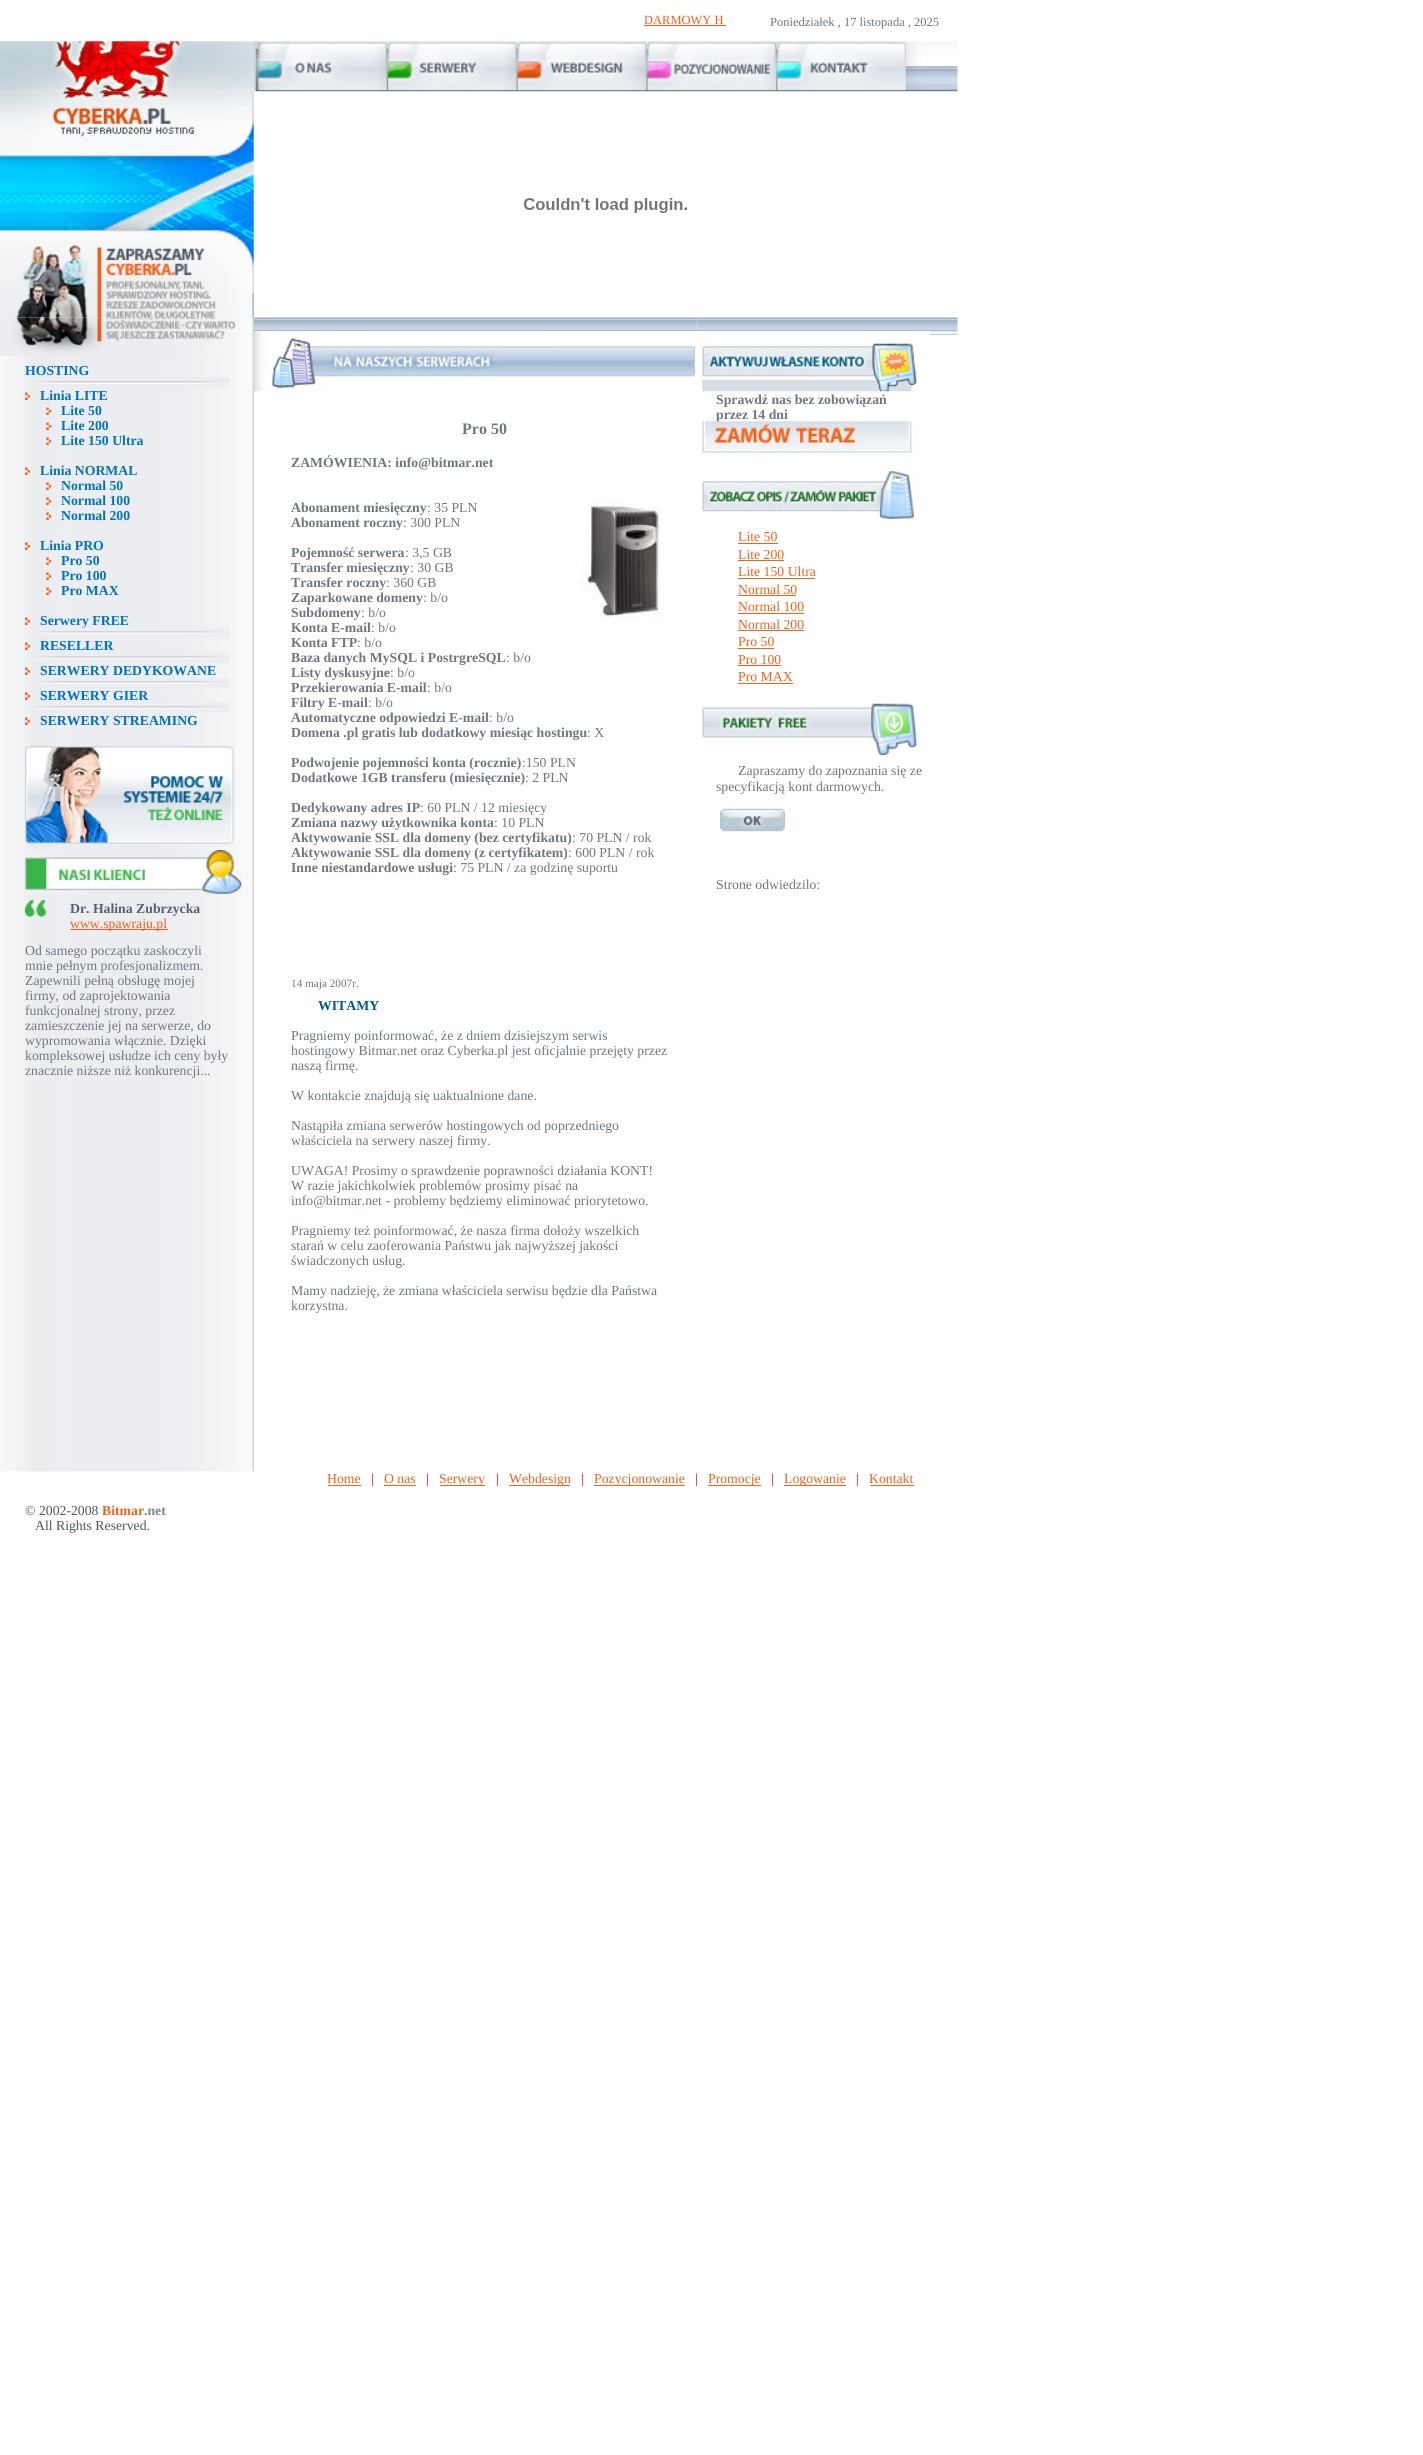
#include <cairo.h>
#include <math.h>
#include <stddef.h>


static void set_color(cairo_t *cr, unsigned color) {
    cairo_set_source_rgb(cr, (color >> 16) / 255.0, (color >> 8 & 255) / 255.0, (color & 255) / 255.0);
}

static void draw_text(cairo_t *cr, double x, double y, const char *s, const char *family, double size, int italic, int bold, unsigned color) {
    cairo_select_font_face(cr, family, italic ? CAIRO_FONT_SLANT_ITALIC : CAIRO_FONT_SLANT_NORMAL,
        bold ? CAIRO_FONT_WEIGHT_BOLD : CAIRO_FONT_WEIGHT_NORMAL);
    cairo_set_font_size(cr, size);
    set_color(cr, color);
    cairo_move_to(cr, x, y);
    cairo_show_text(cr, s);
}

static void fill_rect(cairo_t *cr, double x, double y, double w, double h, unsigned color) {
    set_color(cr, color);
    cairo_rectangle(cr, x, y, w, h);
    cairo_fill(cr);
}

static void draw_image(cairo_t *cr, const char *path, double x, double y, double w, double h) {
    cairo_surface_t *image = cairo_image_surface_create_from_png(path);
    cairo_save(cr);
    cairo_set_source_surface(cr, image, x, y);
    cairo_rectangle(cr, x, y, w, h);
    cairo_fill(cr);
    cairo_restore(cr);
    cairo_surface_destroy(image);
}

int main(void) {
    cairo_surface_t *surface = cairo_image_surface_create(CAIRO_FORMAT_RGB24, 1423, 2455);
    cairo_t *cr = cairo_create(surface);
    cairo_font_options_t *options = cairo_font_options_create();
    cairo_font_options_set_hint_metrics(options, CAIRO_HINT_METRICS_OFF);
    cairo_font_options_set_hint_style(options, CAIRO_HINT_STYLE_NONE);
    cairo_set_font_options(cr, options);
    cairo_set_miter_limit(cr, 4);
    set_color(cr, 0xFFFFFF);
    cairo_paint(cr);
    draw_text(cr, 644, 24, "DARMOWY H", "Liberation Serif", 12.5, 0, 0, 0xF36219);
    fill_rect(cr, 644, 25, 82, 1, 0xF36219);
    draw_text(cr, 770, 26, "Poniedziałek , 17 listopada , 2025", "Liberation Serif", 12.5, 0, 0, 0x707780);
    draw_image(cr, "assets/img1.png", 0, 41, 958, 51);
    draw_image(cr, "assets/img5.png", 0, 317, 254, 1155);
    draw_image(cr, "assets/img6.png", 27, 317, 227, 1155);
    draw_image(cr, "assets/img2.png", 0, 91, 254, 227);
    draw_image(cr, "assets/img3.png", 524, 198, 163, 15);
    draw_image(cr, "assets/img4.png", 930, 317, 28, 18);
    draw_image(cr, "assets/img7.png", 0, 317, 253, 39);
    draw_text(cr, 25, 375, "HOSTING", "Liberation Serif", 13.75, 0, 1, 0x0073BB);
    draw_image(cr, "assets/img8.png", 34, 377, 196, 11);
    draw_image(cr, "assets/img9.png", 25, 392, 5, 8);
    draw_text(cr, 40, 400, "Linia LITE", "Liberation Serif", 13.75, 0, 1, 0x0073BB);
    draw_image(cr, "assets/img10.png", 46, 407, 6, 8);
    draw_text(cr, 61, 415, "Lite 50", "Liberation Serif", 13.75, 0, 1, 0x0073BB);
    draw_image(cr, "assets/img10.png", 46, 422, 6, 8);
    draw_text(cr, 61, 430, "Lite 200", "Liberation Serif", 13.75, 0, 1, 0x0073BB);
    draw_image(cr, "assets/img10.png", 46, 437, 6, 8);
    draw_text(cr, 61, 445, "Lite 150 Ultra", "Liberation Serif", 13.75, 0, 1, 0x0073BB);
    draw_image(cr, "assets/img9.png", 25, 467, 5, 8);
    draw_text(cr, 40, 475, "Linia NORMAL", "Liberation Serif", 13.75, 0, 1, 0x0073BB);
    draw_image(cr, "assets/img10.png", 46, 482, 6, 8);
    draw_text(cr, 61, 490, "Normal 50", "Liberation Serif", 13.75, 0, 1, 0x0073BB);
    draw_image(cr, "assets/img10.png", 46, 497, 6, 8);
    draw_text(cr, 61, 505, "Normal 100", "Liberation Serif", 13.75, 0, 1, 0x0073BB);
    draw_image(cr, "assets/img11.png", 46, 512, 6, 8);
    draw_text(cr, 61, 520, "Normal 200", "Liberation Serif", 13.75, 0, 1, 0x0073BB);
    draw_image(cr, "assets/img9.png", 25, 542, 5, 8);
    draw_text(cr, 40, 550, "Linia PRO", "Liberation Serif", 13.75, 0, 1, 0x0073BB);
    draw_image(cr, "assets/img10.png", 46, 557, 6, 8);
    draw_text(cr, 61, 565, "Pro 50", "Liberation Serif", 13.75, 0, 1, 0x0073BB);
    draw_image(cr, "assets/img10.png", 46, 572, 6, 8);
    draw_text(cr, 61, 580, "Pro 100", "Liberation Serif", 13.75, 0, 1, 0x0073BB);
    draw_image(cr, "assets/img11.png", 46, 587, 6, 8);
    draw_text(cr, 61, 595, "Pro MAX", "Liberation Serif", 13.75, 0, 1, 0x0073BB);
    draw_image(cr, "assets/img9.png", 25, 617, 5, 8);
    draw_text(cr, 40, 625, "Serwery FREE", "Liberation Serif", 13.75, 0, 1, 0x0073BB);
    draw_image(cr, "assets/img12.png", 34, 627, 196, 11);
    draw_image(cr, "assets/img9.png", 25, 642, 5, 8);
    draw_text(cr, 40, 650, "RESELLER", "Liberation Serif", 13.75, 0, 1, 0x0073BB);
    draw_image(cr, "assets/img8.png", 34, 652, 196, 11);
    draw_image(cr, "assets/img9.png", 25, 667, 5, 8);
    draw_text(cr, 40, 675, "SERWERY DEDYKOWANE", "Liberation Serif", 13.75, 0, 1, 0x0073BB);
    draw_image(cr, "assets/img8.png", 34, 677, 196, 11);
    draw_image(cr, "assets/img9.png", 25, 692, 5, 8);
    draw_text(cr, 40, 700, "SERWERY GIER", "Liberation Serif", 13.75, 0, 1, 0x0073BB);
    draw_image(cr, "assets/img8.png", 34, 702, 196, 11);
    draw_image(cr, "assets/img9.png", 25, 717, 5, 8);
    draw_text(cr, 40, 725, "SERWERY STREAMING", "Liberation Serif", 13.75, 0, 1, 0x0073BB);
    draw_image(cr, "assets/img13.png", 25, 746, 209, 98);
    draw_image(cr, "assets/img14.png", 25, 850, 217, 44);
    draw_image(cr, "assets/img15.png", 25, 900, 22, 18);
    draw_text(cr, 70, 913, "Dr. Halina Zubrzycka", "Liberation Serif", 13.75, 0, 1, 0x57616D);
    fill_rect(cr, 70, 929, 98, 1, 0xF36219);
    draw_text(cr, 70, 928, "www.spawraju.pl", "Liberation Serif", 13.75, 0, 0, 0xF36219);
    draw_text(cr, 25, 955, "Od samego początku zaskoczyli", "Liberation Serif", 13.75, 0, 0, 0x707780);
    draw_text(cr, 25, 970, "mnie pełnym profesjonalizmem.", "Liberation Serif", 13.75, 0, 0, 0x707780);
    draw_text(cr, 25, 985, "Zapewnili pełną obsługę mojej", "Liberation Serif", 13.75, 0, 0, 0x707780);
    draw_text(cr, 25, 1000, "firmy, od zaprojektowania", "Liberation Serif", 13.75, 0, 0, 0x707780);
    draw_text(cr, 25, 1015, "funkcjonalnej strony, przez", "Liberation Serif", 13.75, 0, 0, 0x707780);
    draw_text(cr, 25, 1030, "zamieszczenie jej na serwerze, do", "Liberation Serif", 13.75, 0, 0, 0x707780);
    draw_text(cr, 25, 1045, "wypromowania włącznie. Dzięki", "Liberation Serif", 13.75, 0, 0, 0x707780);
    draw_text(cr, 25, 1060, "kompleksowej usłudze ich ceny były", "Liberation Serif", 13.75, 0, 0, 0x707780);
    draw_text(cr, 25, 1075, "znacznie niższe niż konkurencji...", "Liberation Serif", 13.75, 0, 0, 0x707780);
    draw_image(cr, "assets/img16.png", 253, 317, 445, 15);
    draw_image(cr, "assets/img17.png", 253, 331, 445, 61);
    draw_text(cr, 462, 434, "Pro 50", "Liberation Serif", 16, 0, 1, 0x707780);
    draw_text(cr, 291, 467, "ZAMÓWIENIA: info@bitmar.net", "Liberation Serif", 13.75, 0, 1, 0x707780);
    draw_text(cr, 291, 512, "Abonament miesięczny", "Liberation Serif", 13.75, 0, 1, 0x707780);
    draw_text(cr, 427, 512, ": 35 PLN", "Liberation Serif", 13.75, 0, 0, 0x707780);
    draw_image(cr, "assets/img18.png", 581, 501, 81, 119);
    draw_text(cr, 291, 527, "Abonament roczny", "Liberation Serif", 13.75, 0, 1, 0x707780);
    draw_text(cr, 403, 527, ": 300 PLN", "Liberation Serif", 13.75, 0, 0, 0x707780);
    draw_text(cr, 291, 557, "Pojemność serwera", "Liberation Serif", 13.75, 0, 1, 0x707780);
    draw_text(cr, 405, 557, ": 3,5 GB", "Liberation Serif", 13.75, 0, 0, 0x707780);
    draw_text(cr, 291, 572, "Transfer miesięczny", "Liberation Serif", 13.75, 0, 1, 0x707780);
    draw_text(cr, 410, 572, ": 30 GB", "Liberation Serif", 13.75, 0, 0, 0x707780);
    draw_text(cr, 291, 587, "Transfer roczny", "Liberation Serif", 13.75, 0, 1, 0x707780);
    draw_text(cr, 386, 587, ": 360 GB", "Liberation Serif", 13.75, 0, 0, 0x707780);
    draw_text(cr, 291, 602, "Zaparkowane domeny", "Liberation Serif", 13.75, 0, 1, 0x707780);
    draw_text(cr, 423, 602, ": b/o", "Liberation Serif", 13.75, 0, 0, 0x707780);
    draw_text(cr, 291, 617, "Subdomeny", "Liberation Serif", 13.75, 0, 1, 0x707780);
    draw_text(cr, 361, 617, ": b/o", "Liberation Serif", 13.75, 0, 0, 0x707780);
    draw_text(cr, 291, 632, "Konta E-mail", "Liberation Serif", 13.75, 0, 1, 0x707780);
    draw_text(cr, 371, 632, ": b/o", "Liberation Serif", 13.75, 0, 0, 0x707780);
    draw_text(cr, 291, 647, "Konta FTP", "Liberation Serif", 13.75, 0, 1, 0x707780);
    draw_text(cr, 357, 647, ": b/o", "Liberation Serif", 13.75, 0, 0, 0x707780);
    draw_text(cr, 291, 662, "Baza danych MySQL i PostrgreSQL", "Liberation Serif", 13.75, 0, 1, 0x707780);
    draw_text(cr, 506, 662, ": b/o", "Liberation Serif", 13.75, 0, 0, 0x707780);
    draw_text(cr, 291, 677, "Listy dyskusyjne", "Liberation Serif", 13.75, 0, 1, 0x707780);
    draw_text(cr, 390, 677, ": b/o", "Liberation Serif", 13.75, 0, 0, 0x707780);
    draw_text(cr, 291, 692, "Przekierowania E-mail", "Liberation Serif", 13.75, 0, 1, 0x707780);
    draw_text(cr, 427, 692, ": b/o", "Liberation Serif", 13.75, 0, 0, 0x707780);
    draw_text(cr, 291, 707, "Filtry E-mail", "Liberation Serif", 13.75, 0, 1, 0x707780);
    draw_text(cr, 368, 707, ": b/o", "Liberation Serif", 13.75, 0, 0, 0x707780);
    draw_text(cr, 291, 722, "Automatyczne odpowiedzi E-mail", "Liberation Serif", 13.75, 0, 1, 0x707780);
    draw_text(cr, 489, 722, ": b/o", "Liberation Serif", 13.75, 0, 0, 0x707780);
    draw_text(cr, 291, 737, "Domena .pl gratis lub dodatkowy miesiąc hostingu", "Liberation Serif", 13.75, 0, 1, 0x707780);
    draw_text(cr, 587, 737, ": X", "Liberation Serif", 13.75, 0, 0, 0x707780);
    draw_text(cr, 291, 767, "Podwojenie pojemności konta (rocznie)", "Liberation Serif", 13.75, 0, 1, 0x707780);
    draw_text(cr, 522, 767, ":150 PLN", "Liberation Serif", 13.75, 0, 0, 0x707780);
    draw_text(cr, 291, 782, "Dodatkowe 1GB transferu (miesięcznie)", "Liberation Serif", 13.75, 0, 1, 0x707780);
    draw_text(cr, 525, 782, ": 2 PLN", "Liberation Serif", 13.75, 0, 0, 0x707780);
    draw_text(cr, 291, 812, "Dedykowany adres IP", "Liberation Serif", 13.75, 0, 1, 0x707780);
    draw_text(cr, 420, 812, ": 60 PLN / 12 miesięcy", "Liberation Serif", 13.75, 0, 0, 0x707780);
    draw_text(cr, 291, 827, "Zmiana nazwy użytkownika konta", "Liberation Serif", 13.75, 0, 1, 0x707780);
    draw_text(cr, 494, 827, ": 10 PLN", "Liberation Serif", 13.75, 0, 0, 0x707780);
    draw_text(cr, 291, 842, "Aktywowanie SSL dla domeny (bez certyfikatu)", "Liberation Serif", 13.75, 0, 1, 0x707780);
    draw_text(cr, 572, 842, ": 70 PLN / rok", "Liberation Serif", 13.75, 0, 0, 0x707780);
    draw_text(cr, 291, 857, "Aktywowanie SSL dla domeny (z certyfikatem)", "Liberation Serif", 13.75, 0, 1, 0x707780);
    draw_text(cr, 568, 857, ": 600 PLN / rok", "Liberation Serif", 13.75, 0, 0, 0x707780);
    draw_text(cr, 291, 872, "Inne niestandardowe usługi", "Liberation Serif", 13.75, 0, 1, 0x707780);
    draw_text(cr, 453, 872, ": 75 PLN / za godzinę suportu", "Liberation Serif", 13.75, 0, 0, 0x707780);
    draw_text(cr, 291, 987, "14 maja 2007r.", "Liberation Serif", 11.25, 0, 0, 0x707780);
    draw_text(cr, 318, 1010, "WITAMY", "Liberation Serif", 13.75, 0, 1, 0x005A89);
    draw_text(cr, 291, 1040, "Pragniemy poinformować, że z dniem dzisiejszym serwis", "Liberation Serif", 13.75, 0, 0, 0x707780);
    draw_text(cr, 291, 1055, "hostingowy Bitmar.net oraz Cyberka.pl jest oficjalnie przejęty przez", "Liberation Serif", 13.75, 0, 0, 0x707780);
    draw_text(cr, 291, 1070, "naszą firmę.", "Liberation Serif", 13.75, 0, 0, 0x707780);
    draw_text(cr, 291, 1100, "W kontakcie znajdują się uaktualnione dane.", "Liberation Serif", 13.75, 0, 0, 0x707780);
    draw_text(cr, 291, 1130, "Nastąpiła zmiana serwerów hostingowych od poprzedniego", "Liberation Serif", 13.75, 0, 0, 0x707780);
    draw_text(cr, 291, 1145, "właściciela na serwery naszej firmy.", "Liberation Serif", 13.75, 0, 0, 0x707780);
    draw_text(cr, 291, 1175, "UWAGA! Prosimy o sprawdzenie poprawności działania KONT!", "Liberation Serif", 13.75, 0, 0, 0x707780);
    draw_text(cr, 291, 1190, "W razie jakichkolwiek problemów prosimy pisać na", "Liberation Serif", 13.75, 0, 0, 0x707780);
    draw_text(cr, 291, 1205, "info@bitmar.net - problemy będziemy eliminować priorytetowo.", "Liberation Serif", 13.75, 0, 0, 0x707780);
    draw_text(cr, 291, 1235, "Pragniemy też poinformować, że nasza firma dołoży wszelkich", "Liberation Serif", 13.75, 0, 0, 0x707780);
    draw_text(cr, 291, 1250, "starań w celu zaoferowania Państwu jak najwyższej jakości", "Liberation Serif", 13.75, 0, 0, 0x707780);
    draw_text(cr, 291, 1265, "świadczonych usług.", "Liberation Serif", 13.75, 0, 0, 0x707780);
    draw_text(cr, 291, 1295, "Mamy nadzieję, że zmiana właściciela serwisu będzie dla Państwa", "Liberation Serif", 13.75, 0, 0, 0x707780);
    draw_text(cr, 291, 1310, "korzystna.", "Liberation Serif", 13.75, 0, 0, 0x707780);
    draw_image(cr, "assets/img19.png", 697, 317, 233, 15);
    draw_image(cr, "assets/img20.png", 697, 331, 233, 61);
    draw_text(cr, 716, 404, "Sprawdź nas bez zobowiązań", "Liberation Serif", 13.75, 0, 1, 0x707780);
    draw_text(cr, 716, 419, "przez 14 dni", "Liberation Serif", 13.75, 0, 1, 0x707780);
    draw_image(cr, "assets/img21.png", 699, 421, 218, 100);
    draw_text(cr, 738, 541, "Lite 50", "Liberation Serif", 13.75, 0, 0, 0xF36219);
    fill_rect(cr, 738, 543, 40, 1, 0xF36219);
    draw_text(cr, 738, 559, "Lite 200", "Liberation Serif", 13.75, 0, 0, 0xF36219);
    fill_rect(cr, 738, 560, 46, 1, 0xF36219);
    draw_text(cr, 738, 576, "Lite 150 Ultra", "Liberation Serif", 13.75, 0, 0, 0xF36219);
    fill_rect(cr, 738, 578, 77, 1, 0xF36219);
    draw_text(cr, 738, 594, "Normal 50", "Liberation Serif", 13.75, 0, 0, 0xF36219);
    fill_rect(cr, 738, 595, 58, 1, 0xF36219);
    draw_text(cr, 738, 611, "Normal 100", "Liberation Serif", 13.75, 0, 0, 0xF36219);
    fill_rect(cr, 738, 613, 66, 1, 0xF36219);
    draw_text(cr, 738, 629, "Normal 200", "Liberation Serif", 13.75, 0, 0, 0xF36219);
    fill_rect(cr, 738, 630, 66, 1, 0xF36219);
    draw_text(cr, 738, 646, "Pro 50", "Liberation Serif", 13.75, 0, 0, 0xF36219);
    fill_rect(cr, 738, 648, 36, 1, 0xF36219);
    draw_text(cr, 738, 664, "Pro 100", "Liberation Serif", 13.75, 0, 0, 0xF36219);
    fill_rect(cr, 738, 665, 43, 1, 0xF36219);
    draw_text(cr, 738, 681, "Pro MAX", "Liberation Serif", 13.75, 0, 0, 0xF36219);
    fill_rect(cr, 738, 683, 55, 1, 0xF36219);
    draw_image(cr, "assets/img22.png", 702, 703, 215, 52);
    draw_text(cr, 738, 775, "Zapraszamy do zapoznania się ze", "Liberation Serif", 13.75, 0, 0, 0x707780);
    draw_text(cr, 716, 791, "specyfikacją kont darmowych.", "Liberation Serif", 13.75, 0, 0, 0x707780);
    draw_image(cr, "assets/img23.png", 720, 808, 65, 24);
    draw_text(cr, 716, 889, "Strone odwiedzilo:", "Liberation Serif", 13.75, 0, 0, 0x707780);
    draw_text(cr, 327, 1483, "Home", "Liberation Serif", 13.75, 0, 0, 0xF36219);
    fill_rect(cr, 328, 1485, 33, 1, 0xF36219);
    draw_text(cr, 371, 1483, "|", "Liberation Serif", 13.75, 0, 0, 0xDD0000);
    draw_text(cr, 384, 1483, "O nas", "Liberation Serif", 13.75, 0, 0, 0xF36219);
    fill_rect(cr, 384, 1485, 32, 1, 0xF36219);
    draw_text(cr, 426, 1483, "|", "Liberation Serif", 13.75, 0, 0, 0xDD0000);
    fill_rect(cr, 440, 1485, 45, 1, 0xF36219);
    draw_text(cr, 439, 1483, "Serwery", "Liberation Serif", 13.75, 0, 0, 0xF36219);
    draw_text(cr, 496, 1483, "|", "Liberation Serif", 13.75, 0, 0, 0xDD0000);
    fill_rect(cr, 509, 1485, 61, 1, 0xF36219);
    draw_text(cr, 509, 1483, "Webdesign", "Liberation Serif", 13.75, 0, 0, 0xF36219);
    draw_text(cr, 581, 1483, "|", "Liberation Serif", 13.75, 0, 0, 0xDD0000);
    fill_rect(cr, 594, 1485, 91, 1, 0xF36219);
    draw_text(cr, 594, 1483, "Pozycjonowanie", "Liberation Serif", 13.75, 0, 0, 0xF36219);
    draw_text(cr, 695, 1483, "|", "Liberation Serif", 13.75, 0, 0, 0xDD0000);
    fill_rect(cr, 708, 1485, 53, 1, 0xF36219);
    draw_text(cr, 708, 1483, "Promocje", "Liberation Serif", 13.75, 0, 0, 0xF36219);
    draw_text(cr, 771, 1483, "|", "Liberation Serif", 13.75, 0, 0, 0xDD0000);
    fill_rect(cr, 784, 1485, 62, 1, 0xF36219);
    draw_text(cr, 784, 1483, "Logowanie", "Liberation Serif", 13.75, 0, 0, 0xF36219);
    draw_text(cr, 856, 1483, "|", "Liberation Serif", 13.75, 0, 0, 0xDD0000);
    draw_text(cr, 869, 1483, "Kontakt", "Liberation Serif", 13.75, 0, 0, 0xF36219);
    fill_rect(cr, 870, 1485, 44, 1, 0xF36219);
    draw_text(cr, 25, 1515, "© 2002-2008", "Liberation Serif", 13.75, 0, 0, 0x4D5764);
    draw_text(cr, 102, 1515, "Bitmar", "Liberation Serif", 13.75, 0, 1, 0xF36219);
    draw_text(cr, 144, 1515, ".net", "Liberation Serif", 13.75, 0, 1, 0x7A8695);
    draw_text(cr, 35, 1530, "All Rights Reserved.", "Liberation Serif", 13.75, 0, 0, 0x4D5764);
    cairo_surface_write_to_png(surface, "output.png");
    cairo_font_options_destroy(options);
    cairo_destroy(cr);
    cairo_surface_destroy(surface);
    return 0;
}
